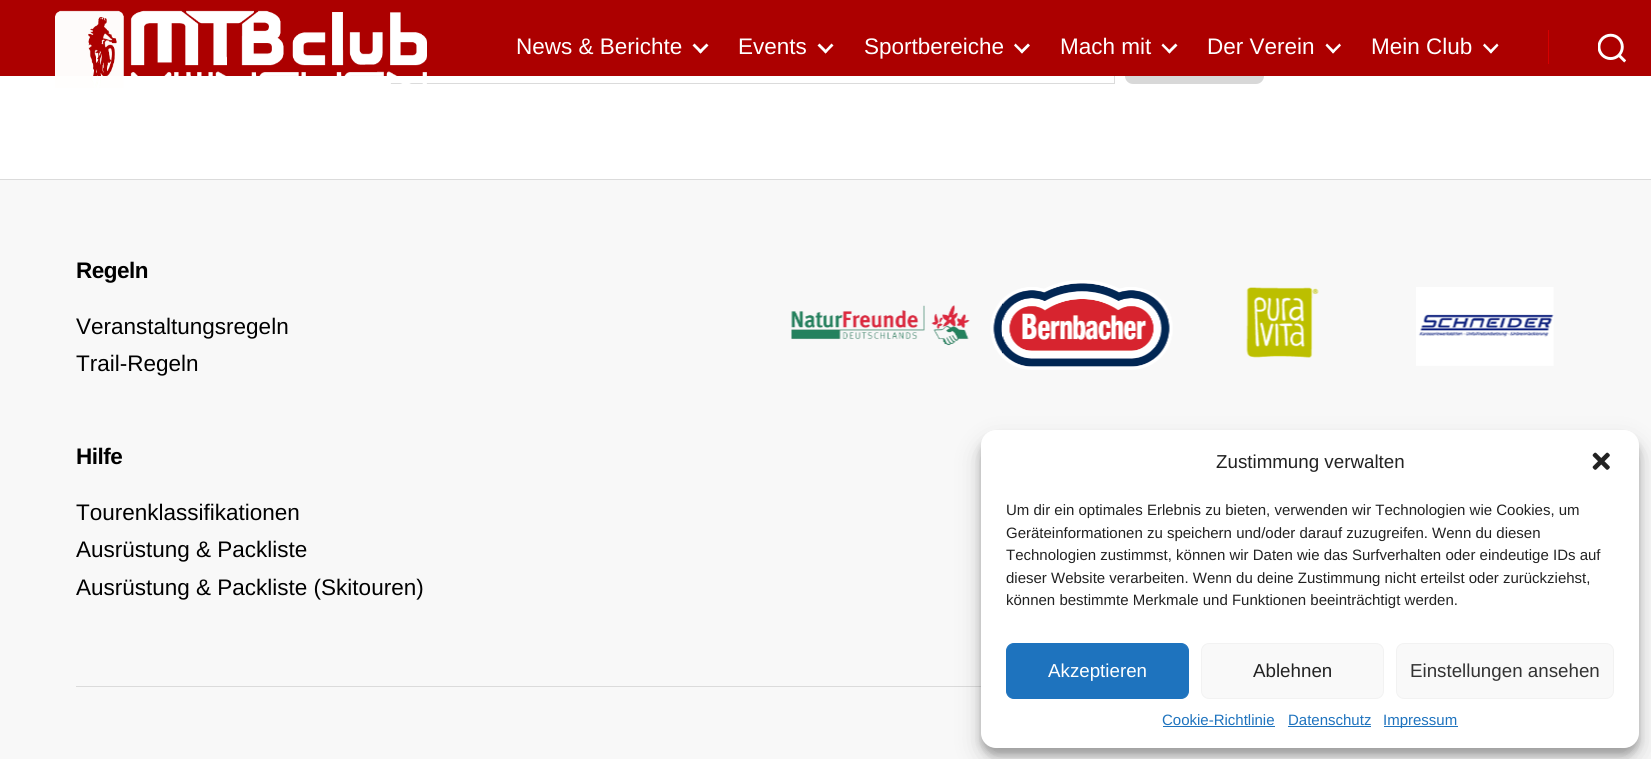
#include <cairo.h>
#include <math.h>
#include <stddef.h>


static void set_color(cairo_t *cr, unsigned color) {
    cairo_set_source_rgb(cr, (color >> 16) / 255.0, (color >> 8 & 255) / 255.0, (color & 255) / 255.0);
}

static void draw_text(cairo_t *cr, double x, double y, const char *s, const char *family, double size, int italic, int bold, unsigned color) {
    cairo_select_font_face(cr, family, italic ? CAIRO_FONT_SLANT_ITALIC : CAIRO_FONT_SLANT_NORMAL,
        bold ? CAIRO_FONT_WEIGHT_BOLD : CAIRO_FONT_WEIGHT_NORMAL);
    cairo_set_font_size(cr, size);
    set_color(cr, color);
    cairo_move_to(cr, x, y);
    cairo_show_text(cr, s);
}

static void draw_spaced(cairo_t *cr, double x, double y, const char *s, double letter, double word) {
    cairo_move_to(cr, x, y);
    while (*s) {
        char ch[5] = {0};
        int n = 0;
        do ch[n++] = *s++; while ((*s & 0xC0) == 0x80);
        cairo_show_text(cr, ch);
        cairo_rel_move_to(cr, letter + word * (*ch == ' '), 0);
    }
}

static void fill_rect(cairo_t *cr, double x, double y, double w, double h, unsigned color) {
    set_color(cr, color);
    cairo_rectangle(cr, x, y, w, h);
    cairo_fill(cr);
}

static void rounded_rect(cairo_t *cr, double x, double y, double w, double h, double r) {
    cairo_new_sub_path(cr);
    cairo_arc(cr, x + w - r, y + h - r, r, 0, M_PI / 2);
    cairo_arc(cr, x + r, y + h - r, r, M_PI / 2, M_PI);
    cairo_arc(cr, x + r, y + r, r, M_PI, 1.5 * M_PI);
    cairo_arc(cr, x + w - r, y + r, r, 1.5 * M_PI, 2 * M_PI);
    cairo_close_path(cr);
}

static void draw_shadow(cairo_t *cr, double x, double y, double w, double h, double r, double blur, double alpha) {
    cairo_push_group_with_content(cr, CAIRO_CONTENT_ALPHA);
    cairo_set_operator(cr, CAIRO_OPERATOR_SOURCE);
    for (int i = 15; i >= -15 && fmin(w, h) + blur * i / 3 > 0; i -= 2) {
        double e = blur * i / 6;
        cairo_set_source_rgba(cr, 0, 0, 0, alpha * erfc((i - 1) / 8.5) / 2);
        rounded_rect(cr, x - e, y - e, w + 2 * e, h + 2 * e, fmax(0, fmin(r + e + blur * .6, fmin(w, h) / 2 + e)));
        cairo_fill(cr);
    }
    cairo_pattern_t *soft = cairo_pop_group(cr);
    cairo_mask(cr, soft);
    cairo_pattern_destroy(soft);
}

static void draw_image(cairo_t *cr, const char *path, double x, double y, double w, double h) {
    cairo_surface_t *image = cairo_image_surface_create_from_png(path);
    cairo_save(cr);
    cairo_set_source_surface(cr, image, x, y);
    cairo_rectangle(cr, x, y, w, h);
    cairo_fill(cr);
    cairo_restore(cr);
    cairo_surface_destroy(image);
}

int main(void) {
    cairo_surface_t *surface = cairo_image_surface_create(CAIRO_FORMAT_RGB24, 1651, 759);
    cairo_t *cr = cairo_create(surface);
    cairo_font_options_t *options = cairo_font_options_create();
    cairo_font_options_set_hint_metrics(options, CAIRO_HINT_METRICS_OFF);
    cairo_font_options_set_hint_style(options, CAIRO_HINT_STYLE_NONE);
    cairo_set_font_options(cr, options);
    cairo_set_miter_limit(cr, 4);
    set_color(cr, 0xFFFFFF);
    cairo_paint(cr);
    cairo_rectangle(cr, 389.5, 10.5, 725, 73);
    set_color(cr, 0xDBDBDB);
    cairo_set_line_width(cr, 1);
    cairo_stroke(cr);
    set_color(cr, 0xD8D8D8);
    rounded_rect(cr, 1125, 10, 139, 74, 8);
    cairo_fill(cr);
    fill_rect(cr, 0, 0, 1651, 76, 0xAC0000);
    draw_image(cr, "assets/img1.png", 55, 10, 372, 78);
    draw_text(cr, 516, 54, "News & Berichte", "Liberation Sans", 22.5, 0, 0, 0xFFFFFF);
    cairo_new_path(cr);
    cairo_move_to(cr, 692.5, 45.5);
    cairo_line_to(cr, 694.5, 43.5);
    cairo_line_to(cr, 702.5, 51.5);
    cairo_line_to(cr, 700.5, 53.5);
    cairo_close_path(cr);
    cairo_fill(cr);
    cairo_new_path(cr);
    cairo_move_to(cr, 698.5, 51.5);
    cairo_line_to(cr, 706.5, 43.5);
    cairo_line_to(cr, 708.5, 45.5);
    cairo_line_to(cr, 700.5, 53.5);
    cairo_close_path(cr);
    cairo_fill(cr);
    draw_text(cr, 738, 54, "Events", "Liberation Sans", 22.5, 0, 0, 0xFFFFFF);
    cairo_new_path(cr);
    cairo_move_to(cr, 817.5, 45.5);
    cairo_line_to(cr, 819.5, 43.5);
    cairo_line_to(cr, 827.5, 51.5);
    cairo_line_to(cr, 825.5, 53.5);
    cairo_close_path(cr);
    cairo_fill(cr);
    cairo_new_path(cr);
    cairo_move_to(cr, 824, 51.5);
    cairo_line_to(cr, 831.5, 43.5);
    cairo_line_to(cr, 833.5, 45.5);
    cairo_line_to(cr, 825.5, 53.5);
    cairo_close_path(cr);
    cairo_fill(cr);
    draw_text(cr, 864, 54, "Sportbereiche", "Liberation Sans", 22.5, 0, 0, 0xFFFFFF);
    cairo_new_path(cr);
    cairo_move_to(cr, 1014, 45.5);
    cairo_line_to(cr, 1015.5, 43.5);
    cairo_line_to(cr, 1023.5, 51.5);
    cairo_line_to(cr, 1022, 53.5);
    cairo_close_path(cr);
    cairo_fill(cr);
    cairo_new_path(cr);
    cairo_move_to(cr, 1020, 51.5);
    cairo_line_to(cr, 1028, 43.5);
    cairo_line_to(cr, 1030, 45.5);
    cairo_line_to(cr, 1022, 53.5);
    cairo_close_path(cr);
    cairo_fill(cr);
    draw_text(cr, 1060, 54, "Mach mit", "Liberation Sans", 22.5, 0, 0, 0xFFFFFF);
    cairo_new_path(cr);
    cairo_move_to(cr, 1161.5, 45.5);
    cairo_line_to(cr, 1163, 43.5);
    cairo_line_to(cr, 1171, 51.5);
    cairo_line_to(cr, 1169.5, 53.5);
    cairo_close_path(cr);
    cairo_fill(cr);
    cairo_new_path(cr);
    cairo_move_to(cr, 1167.5, 51.5);
    cairo_line_to(cr, 1175.5, 43.5);
    cairo_line_to(cr, 1177.5, 45.5);
    cairo_line_to(cr, 1169.5, 53.5);
    cairo_close_path(cr);
    cairo_fill(cr);
    draw_text(cr, 1207, 54, "Der Verein", "Liberation Sans", 22.5, 0, 0, 0xFFFFFF);
    cairo_new_path(cr);
    cairo_move_to(cr, 1325.5, 45.5);
    cairo_line_to(cr, 1327, 43.5);
    cairo_line_to(cr, 1335, 51.5);
    cairo_line_to(cr, 1333, 53.5);
    cairo_close_path(cr);
    cairo_fill(cr);
    cairo_new_path(cr);
    cairo_move_to(cr, 1331.5, 51.5);
    cairo_line_to(cr, 1339.5, 43.5);
    cairo_line_to(cr, 1341, 45.5);
    cairo_line_to(cr, 1333, 53.5);
    cairo_close_path(cr);
    cairo_fill(cr);
    draw_text(cr, 1371, 54, "Mein Club", "Liberation Sans", 22.5, 0, 0, 0xFFFFFF);
    cairo_new_path(cr);
    cairo_move_to(cr, 1483, 45.5);
    cairo_line_to(cr, 1484.5, 43.5);
    cairo_line_to(cr, 1492.5, 51.5);
    cairo_line_to(cr, 1491, 53.5);
    cairo_close_path(cr);
    cairo_fill(cr);
    cairo_new_path(cr);
    cairo_move_to(cr, 1489, 51.5);
    cairo_line_to(cr, 1497, 43.5);
    cairo_line_to(cr, 1498.5, 45.5);
    cairo_line_to(cr, 1491, 53.5);
    cairo_close_path(cr);
    cairo_fill(cr);
    fill_rect(cr, 1548, 30, 1, 34, 0xD60000);
    draw_image(cr, "assets/img2.png", 1598, 33, 28, 30);
    fill_rect(cr, 0, 180, 1651, 579, 0xF8F8F8);
    fill_rect(cr, 0, 179, 1651, 1, 0xDBDBDB);
    fill_rect(cr, 76, 686, 905, 1, 0xDBDBDB);
    cairo_select_font_face(cr, "Liberation Sans", CAIRO_FONT_SLANT_NORMAL, CAIRO_FONT_WEIGHT_BOLD);
    set_color(cr, 0x000000);
    draw_spaced(cr, 76, 278, "Regeln", -0.5, 0);
    draw_text(cr, 76, 334, "Veranstaltungsregeln", "Liberation Sans", 22.5, 0, 0, 0x000000);
    draw_text(cr, 76, 371, "Trail-Regeln", "Liberation Sans", 22.5, 0, 0, 0x000000);
    cairo_select_font_face(cr, "Liberation Sans", CAIRO_FONT_SLANT_NORMAL, CAIRO_FONT_WEIGHT_BOLD);
    draw_spaced(cr, 76, 464, "Hilfe", -0.5, 0);
    draw_text(cr, 76, 520, "Tourenklassifikationen", "Liberation Sans", 22.5, 0, 0, 0x000000);
    draw_text(cr, 76, 557, "Ausrüstung & Packliste", "Liberation Sans", 22.5, 0, 0, 0x000000);
    draw_text(cr, 76, 595, "Ausrüstung & Packliste (Skitouren)", "Liberation Sans", 22.5, 0, 0, 0x000000);
    draw_image(cr, "assets/img3.png", 791, 305, 179, 41);
    draw_image(cr, "assets/img4.png", 990, 280, 183, 90);
    draw_image(cr, "assets/img5.png", 1246, 287, 73, 71);
    draw_image(cr, "assets/img6.png", 1416, 287, 138, 79);
    set_color(cr, 0x000000);
    draw_shadow(cr, 981, 438, 658, 317, 15, 4, 0.23);
    draw_shadow(cr, 981, 443, 658, 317, 15, 12.5, 0.19);
    set_color(cr, 0xFFFFFF);
    rounded_rect(cr, 981, 430, 658, 318, 15);
    cairo_fill(cr);
    draw_text(cr, 1216, 468, "Zustimmung verwalten", "Liberation Sans", 18.75, 0, 0, 0x222222);
    draw_image(cr, "assets/img7.png", 1592, 452, 18, 18);
    draw_text(cr, 1006, 515, "Um dir ein optimales Erlebnis zu bieten, verwenden wir Technologien wie Cookies, um", "Liberation Sans", 15, 0, 0, 0x222222);
    draw_text(cr, 1006, 538, "Geräteinformationen zu speichern und/oder darauf zuzugreifen. Wenn du diesen", "Liberation Sans", 15, 0, 0, 0x222222);
    draw_text(cr, 1006, 560, "Technologien zustimmst, können wir Daten wie das Surfverhalten oder eindeutige IDs auf", "Liberation Sans", 15, 0, 0, 0x222222);
    draw_text(cr, 1006, 583, "dieser Website verarbeiten. Wenn du deine Zustimmung nicht erteilst oder zurückziehst,", "Liberation Sans", 15, 0, 0, 0x222222);
    draw_text(cr, 1006, 605, "können bestimmte Merkmale und Funktionen beeinträchtigt werden.", "Liberation Sans", 15, 0, 0, 0x222222);
    set_color(cr, 0x1E73BE);
    rounded_rect(cr, 1006.5, 643.5, 182, 55, 7.5);
    cairo_fill_preserve(cr);
    cairo_stroke(cr);
    draw_text(cr, 1048, 677, "Akzeptieren", "Liberation Sans", 18.75, 0, 0, 0xFFFFFF);
    set_color(cr, 0xF9F9F9);
    rounded_rect(cr, 1201.5, 643.5, 182, 55, 7.5);
    cairo_fill_preserve(cr);
    set_color(cr, 0xF2F2F2);
    cairo_stroke(cr);
    draw_text(cr, 1253, 677, "Ablehnen", "Liberation Sans", 18.75, 0, 0, 0x222222);
    set_color(cr, 0xF9F9F9);
    rounded_rect(cr, 1396.5, 643.5, 217, 55, 7.5);
    cairo_fill_preserve(cr);
    set_color(cr, 0xF2F2F2);
    cairo_stroke(cr);
    draw_text(cr, 1410, 677, "Einstellungen ansehen", "Liberation Sans", 18.75, 0, 0, 0x333333);
    draw_text(cr, 1162, 725, "Cookie-Richtlinie", "Liberation Sans", 15, 0, 0, 0x1E73BE);
    fill_rect(cr, 1163, 726, 112, 1, 0x1E73BE);
    draw_text(cr, 1288, 725, "Datenschutz", "Liberation Sans", 15, 0, 0, 0x1E73BE);
    fill_rect(cr, 1288, 726, 83, 1, 0x1E73BE);
    fill_rect(cr, 1384, 726, 74, 1, 0x1E73BE);
    draw_text(cr, 1383, 725, "Impressum", "Liberation Sans", 15, 0, 0, 0x1E73BE);
    cairo_surface_write_to_png(surface, "output.png");
    cairo_font_options_destroy(options);
    cairo_destroy(cr);
    cairo_surface_destroy(surface);
    return 0;
}
